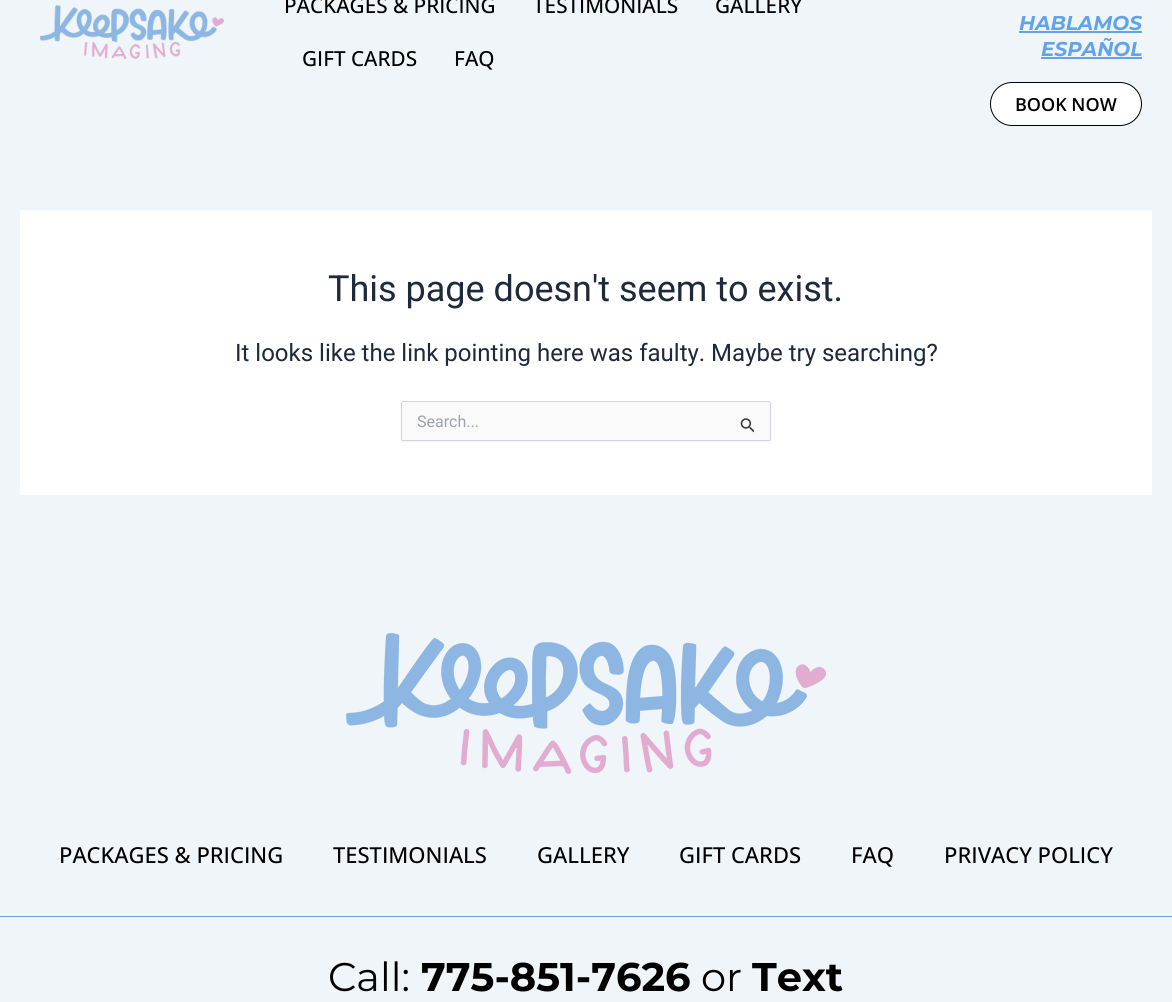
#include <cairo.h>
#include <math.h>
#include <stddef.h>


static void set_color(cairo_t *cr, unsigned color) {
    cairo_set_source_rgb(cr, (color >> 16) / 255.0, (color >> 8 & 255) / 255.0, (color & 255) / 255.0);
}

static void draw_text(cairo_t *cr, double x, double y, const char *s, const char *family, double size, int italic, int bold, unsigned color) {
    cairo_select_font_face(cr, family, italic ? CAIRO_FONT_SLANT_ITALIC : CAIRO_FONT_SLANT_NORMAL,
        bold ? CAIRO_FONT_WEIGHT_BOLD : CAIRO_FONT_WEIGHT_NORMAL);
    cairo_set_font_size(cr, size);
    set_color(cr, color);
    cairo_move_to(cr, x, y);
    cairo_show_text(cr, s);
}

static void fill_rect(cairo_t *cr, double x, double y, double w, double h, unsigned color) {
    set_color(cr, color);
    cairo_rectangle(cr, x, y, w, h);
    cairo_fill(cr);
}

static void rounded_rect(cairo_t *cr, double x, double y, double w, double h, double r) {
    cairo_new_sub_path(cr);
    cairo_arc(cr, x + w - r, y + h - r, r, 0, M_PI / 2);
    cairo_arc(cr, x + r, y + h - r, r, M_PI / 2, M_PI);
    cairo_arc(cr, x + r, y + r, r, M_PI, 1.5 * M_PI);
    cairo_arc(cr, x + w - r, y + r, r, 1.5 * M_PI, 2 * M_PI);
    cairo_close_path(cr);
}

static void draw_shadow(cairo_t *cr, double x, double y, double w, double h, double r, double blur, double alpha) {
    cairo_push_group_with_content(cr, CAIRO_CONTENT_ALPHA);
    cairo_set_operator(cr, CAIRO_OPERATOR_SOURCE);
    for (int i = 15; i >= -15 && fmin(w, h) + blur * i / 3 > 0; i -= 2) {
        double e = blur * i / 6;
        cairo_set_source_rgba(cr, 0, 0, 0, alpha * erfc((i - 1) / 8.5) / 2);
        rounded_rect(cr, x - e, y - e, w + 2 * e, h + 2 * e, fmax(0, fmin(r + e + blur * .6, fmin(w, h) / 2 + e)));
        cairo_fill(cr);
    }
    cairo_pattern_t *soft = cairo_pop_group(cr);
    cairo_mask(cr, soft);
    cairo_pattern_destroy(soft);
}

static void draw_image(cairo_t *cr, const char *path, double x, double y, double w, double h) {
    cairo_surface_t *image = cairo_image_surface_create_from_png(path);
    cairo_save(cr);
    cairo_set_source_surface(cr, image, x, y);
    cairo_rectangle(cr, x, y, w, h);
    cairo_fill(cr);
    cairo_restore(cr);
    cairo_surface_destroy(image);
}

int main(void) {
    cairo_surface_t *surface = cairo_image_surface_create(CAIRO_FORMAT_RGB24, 1172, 1002);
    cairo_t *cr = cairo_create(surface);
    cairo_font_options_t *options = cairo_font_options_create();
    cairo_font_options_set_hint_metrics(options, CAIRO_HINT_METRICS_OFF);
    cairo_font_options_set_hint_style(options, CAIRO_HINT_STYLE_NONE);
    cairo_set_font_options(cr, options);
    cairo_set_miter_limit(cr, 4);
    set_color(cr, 0xF0F5FA);
    cairo_paint(cr);
    draw_image(cr, "assets/img1.png", 40, 5, 184, 55);
    draw_text(cr, 284, 13, "PACKAGES & PRICING", "Open Sans Medium", 20.75, 0, 0, 0x000000);
    draw_text(cr, 533, 13, "TESTIMONIALS", "Open Sans Medium", 20.75, 0, 0, 0x000000);
    draw_text(cr, 715, 13, "GALLERY", "Open Sans Medium", 20.75, 0, 0, 0x000000);
    draw_text(cr, 302, 66, "GIFT CARDS", "Open Sans Medium", 20.75, 0, 0, 0x000000);
    draw_text(cr, 454, 66, "FAQ", "Open Sans Medium", 20.75, 0, 0, 0x000000);
    draw_text(cr, 1019, 30, "HABLAMOS", "Montserrat", 20, 1, 1, 0x62A3E9);
    fill_rect(cr, 1019, 31, 123, 2, 0x62A3E9);
    draw_text(cr, 1041, 56, "ESPAÑOL", "Montserrat", 20, 1, 1, 0x62A3E9);
    fill_rect(cr, 1041, 57, 101, 2, 0x62A3E9);
    set_color(cr, 0xFFFFFF);
    rounded_rect(cr, 990.5, 82.5, 151, 43, 21.5);
    cairo_fill_preserve(cr);
    set_color(cr, 0x000000);
    cairo_set_line_width(cr, 1);
    cairo_stroke(cr);
    draw_text(cr, 1015, 111, "BOOK NOW", "Open Sans SemiBold", 18, 0, 0, 0x000000);
    fill_rect(cr, 20, 210, 1132, 285, 0xFFFFFF);
    draw_text(cr, 328, 301, "This page doesn't seem to exist.", "Roboto", 36, 0, 0, 0x1E293B);
    draw_text(cr, 235, 361, "It looks like the link pointing here was faulty. Maybe try searching?", "Roboto", 24, 0, 0, 0x1E293B);
    set_color(cr, 0x000000);
    draw_shadow(cr, 401, 402, 370, 40, 2, 1, 0.05);
    set_color(cr, 0xFAFAFA);
    rounded_rect(cr, 401.5, 401.5, 369, 39, 1.5);
    cairo_fill_preserve(cr);
    set_color(cr, 0xD1D5DB);
    cairo_stroke(cr);
    draw_text(cr, 417, 427, "Search...", "Roboto", 16, 0, 0, 0x9CA3AF);
    draw_image(cr, "assets/img2.png", 740, 418, 14, 15);
    draw_image(cr, "assets/img3.png", 346, 633, 480, 141);
    draw_text(cr, 59, 863, "PACKAGES & PRICING", "Open Sans Medium", 22, 0, 0, 0x000000);
    draw_text(cr, 333, 863, "TESTIMONIALS", "Open Sans Medium", 22, 0, 0, 0x000000);
    draw_text(cr, 537, 863, "GALLERY", "Open Sans Medium", 22, 0, 0, 0x000000);
    draw_text(cr, 679, 863, "GIFT CARDS", "Open Sans Medium", 22, 0, 0, 0x000000);
    draw_text(cr, 851, 863, "FAQ", "Open Sans Medium", 22, 0, 0, 0x000000);
    draw_text(cr, 944, 863, "PRIVACY POLICY", "Open Sans Medium", 22, 0, 0, 0x000000);
    fill_rect(cr, 0, 916, 1172, 1, 0x62A3E9);
    draw_text(cr, 328, 991, "Call:", "Montserrat", 40, 0, 0, 0x000000);
    draw_text(cr, 421, 991, "775-851-7626", "Montserrat", 40, 0, 1, 0x000000);
    draw_text(cr, 701, 991, "or", "Montserrat", 40, 0, 0, 0x000000);
    draw_text(cr, 752, 991, "Text", "Montserrat", 40, 0, 1, 0x000000);
    cairo_surface_write_to_png(surface, "output.png");
    cairo_font_options_destroy(options);
    cairo_destroy(cr);
    cairo_surface_destroy(surface);
    return 0;
}
